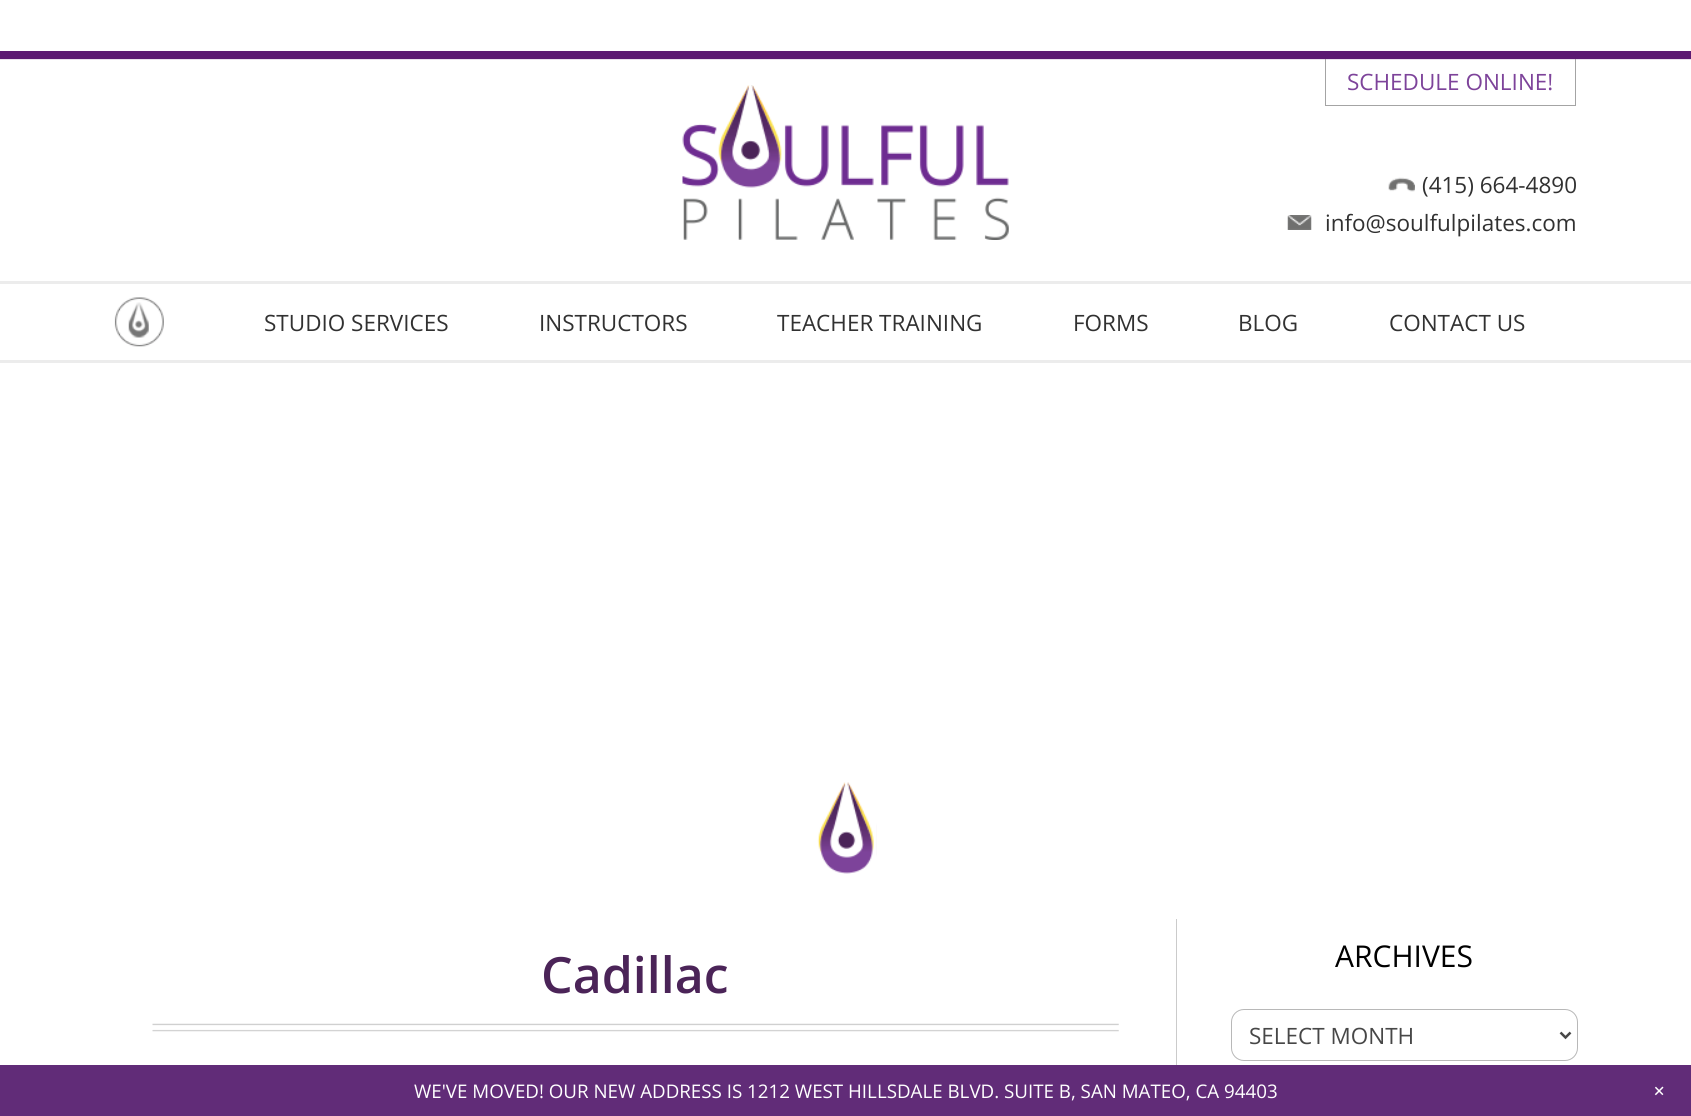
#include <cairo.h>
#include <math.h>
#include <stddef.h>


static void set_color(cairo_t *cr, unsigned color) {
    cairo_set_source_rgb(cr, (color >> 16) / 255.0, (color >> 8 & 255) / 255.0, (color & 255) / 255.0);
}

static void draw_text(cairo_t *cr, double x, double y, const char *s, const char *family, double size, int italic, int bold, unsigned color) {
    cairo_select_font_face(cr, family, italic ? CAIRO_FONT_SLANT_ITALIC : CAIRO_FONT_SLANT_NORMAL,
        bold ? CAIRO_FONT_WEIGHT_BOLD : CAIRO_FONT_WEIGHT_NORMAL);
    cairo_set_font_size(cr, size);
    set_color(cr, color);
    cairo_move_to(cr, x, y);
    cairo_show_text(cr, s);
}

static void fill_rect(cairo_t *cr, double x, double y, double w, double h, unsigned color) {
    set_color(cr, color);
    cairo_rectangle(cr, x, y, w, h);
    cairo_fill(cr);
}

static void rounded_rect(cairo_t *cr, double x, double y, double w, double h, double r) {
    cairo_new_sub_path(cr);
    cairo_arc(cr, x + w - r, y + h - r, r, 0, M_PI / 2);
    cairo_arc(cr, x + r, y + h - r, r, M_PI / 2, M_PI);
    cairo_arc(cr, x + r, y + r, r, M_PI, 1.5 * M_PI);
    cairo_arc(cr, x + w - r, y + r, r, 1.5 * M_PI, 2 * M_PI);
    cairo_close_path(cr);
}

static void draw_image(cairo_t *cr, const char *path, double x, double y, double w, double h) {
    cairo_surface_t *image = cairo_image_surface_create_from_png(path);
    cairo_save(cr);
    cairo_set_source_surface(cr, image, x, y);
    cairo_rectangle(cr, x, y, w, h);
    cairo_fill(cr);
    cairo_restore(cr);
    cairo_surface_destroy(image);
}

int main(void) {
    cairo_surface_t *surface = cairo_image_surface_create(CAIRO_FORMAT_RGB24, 1691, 1116);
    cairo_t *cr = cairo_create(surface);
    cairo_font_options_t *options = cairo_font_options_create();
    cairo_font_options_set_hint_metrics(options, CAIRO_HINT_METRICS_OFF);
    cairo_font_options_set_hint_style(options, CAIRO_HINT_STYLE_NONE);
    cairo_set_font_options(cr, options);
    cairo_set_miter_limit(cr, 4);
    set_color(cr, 0xFFFFFF);
    cairo_paint(cr);
    fill_rect(cr, 0, 59, 1691, 1, 0xEAE2ED);
    fill_rect(cr, 0, 51, 1691, 8, 0x5C1972);
    draw_image(cr, "assets/img1.png", 682, 85, 327, 155);
    fill_rect(cr, 1575, 59, 1, 47, 0xA4A4A4);
    fill_rect(cr, 1325, 105, 251, 1, 0xA4A4A4);
    fill_rect(cr, 1325, 59, 1, 47, 0xA4A4A4);
    draw_text(cr, 1347, 90, "SCHEDULE ONLINE!", "Open Sans", 22.5, 0, 0, 0x7D439A);
    draw_image(cr, "assets/img2.png", 1388, 177, 27, 15);
    draw_text(cr, 1422, 193, "(415) 664-4890", "Open Sans", 22.5, 0, 0, 0x313131);
    draw_image(cr, "assets/img3.png", 1287, 215, 25, 15);
    draw_text(cr, 1325, 231, "info@soulfulpilates.com", "Open Sans", 22.5, 0, 0, 0x313131);
    fill_rect(cr, 0, 281, 1691, 3, 0xECECEC);
    fill_rect(cr, 0, 360, 1691, 3, 0xECECEC);
    draw_image(cr, "assets/img4.png", 114, 297, 50, 50);
    draw_text(cr, 264, 331, "STUDIO SERVICES", "Open Sans", 22.5, 0, 0, 0x313131);
    draw_text(cr, 539, 331, "INSTRUCTORS", "Open Sans", 22.5, 0, 0, 0x313131);
    draw_text(cr, 777, 331, "TEACHER TRAINING", "Open Sans", 22.5, 0, 0, 0x313131);
    draw_text(cr, 1073, 331, "FORMS", "Open Sans", 22.5, 0, 0, 0x313131);
    draw_text(cr, 1238, 331, "BLOG", "Open Sans", 22.5, 0, 0, 0x313131);
    draw_text(cr, 1389, 331, "CONTACT US", "Open Sans", 22.5, 0, 0, 0x313131);
    draw_image(cr, "assets/img5.png", 817, 782, 60, 92);
    fill_rect(cr, 1176, 919, 1, 146, 0xCBCBCB);
    draw_image(cr, "assets/img6.png", 152, 1023, 967, 9);
    draw_text(cr, 541, 993, "Cadillac", "Open Sans SemiBold", 50, 0, 0, 0x4B2458);
    draw_text(cr, 1335, 967, "ARCHIVES", "Open Sans", 30, 0, 0, 0x000000);
    rounded_rect(cr, 1231.5, 1009.5, 346, 51, 12.5);
    set_color(cr, 0xB8B8B8);
    cairo_set_line_width(cr, 1);
    cairo_stroke(cr);
    cairo_new_path(cr);
    cairo_move_to(cr, 1560.5, 1032.5);
    cairo_line_to(cr, 1565.5, 1037.5);
    cairo_line_to(cr, 1570.5, 1032.5);
    set_color(cr, 0x474747);
    cairo_set_line_width(cr, 2.5);
    cairo_stroke(cr);
    draw_text(cr, 1249, 1044, "SELECT MONTH", "Open Sans", 22.5, 0, 0, 0x474747);
    fill_rect(cr, 0, 1065, 1691, 51, 0x612C78);
    draw_text(cr, 414, 1098, "WE'VE MOVED! OUR NEW ADDRESS IS 1212 WEST HILLSDALE BLVD. SUITE B, SAN MATEO, CA 94403", "Open Sans", 18.75, 0, 0, 0xFFFFFF);
    cairo_save(cr);
    cairo_translate(cr, 1649, 1092);
    cairo_rotate(cr, 45 * M_PI / 180);
    draw_text(cr, 0, 0, "+", "Open Sans", 22.5, 0, 0, 0xFFFFFF);
    cairo_restore(cr);
    cairo_surface_write_to_png(surface, "output.png");
    cairo_font_options_destroy(options);
    cairo_destroy(cr);
    cairo_surface_destroy(surface);
    return 0;
}
